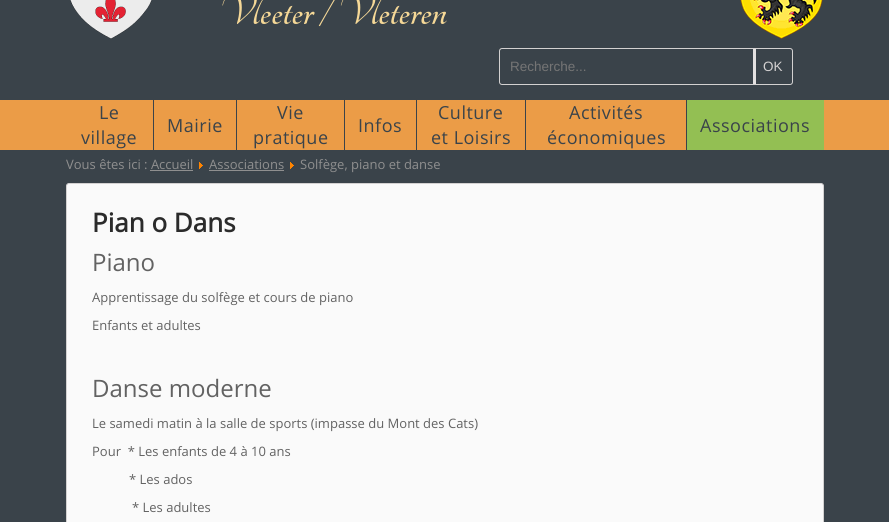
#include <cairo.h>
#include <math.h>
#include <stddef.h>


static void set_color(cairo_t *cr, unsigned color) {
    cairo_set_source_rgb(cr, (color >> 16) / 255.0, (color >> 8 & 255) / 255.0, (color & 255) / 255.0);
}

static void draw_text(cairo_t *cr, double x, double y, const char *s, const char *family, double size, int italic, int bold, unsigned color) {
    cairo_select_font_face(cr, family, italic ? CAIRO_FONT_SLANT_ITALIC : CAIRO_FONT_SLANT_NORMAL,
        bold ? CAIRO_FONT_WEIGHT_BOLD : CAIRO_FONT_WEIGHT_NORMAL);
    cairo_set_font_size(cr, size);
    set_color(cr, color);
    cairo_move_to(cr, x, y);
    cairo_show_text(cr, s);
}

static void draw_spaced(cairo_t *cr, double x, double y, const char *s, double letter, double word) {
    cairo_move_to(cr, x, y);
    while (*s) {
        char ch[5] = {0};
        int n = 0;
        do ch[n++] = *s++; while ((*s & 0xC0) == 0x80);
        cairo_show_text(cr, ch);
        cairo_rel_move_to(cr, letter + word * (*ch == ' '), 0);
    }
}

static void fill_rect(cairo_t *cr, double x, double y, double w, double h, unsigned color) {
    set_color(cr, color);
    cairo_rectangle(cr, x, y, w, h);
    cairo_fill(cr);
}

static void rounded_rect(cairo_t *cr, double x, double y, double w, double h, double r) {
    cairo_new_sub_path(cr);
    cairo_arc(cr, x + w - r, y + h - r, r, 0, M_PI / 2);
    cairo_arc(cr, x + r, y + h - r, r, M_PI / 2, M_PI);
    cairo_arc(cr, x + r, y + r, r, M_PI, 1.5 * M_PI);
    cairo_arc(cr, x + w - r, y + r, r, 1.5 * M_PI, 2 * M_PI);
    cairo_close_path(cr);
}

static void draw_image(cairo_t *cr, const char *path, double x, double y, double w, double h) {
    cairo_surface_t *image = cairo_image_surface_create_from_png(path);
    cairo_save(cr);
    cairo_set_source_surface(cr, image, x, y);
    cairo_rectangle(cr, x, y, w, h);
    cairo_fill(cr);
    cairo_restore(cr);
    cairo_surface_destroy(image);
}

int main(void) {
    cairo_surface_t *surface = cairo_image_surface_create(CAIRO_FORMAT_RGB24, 889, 522);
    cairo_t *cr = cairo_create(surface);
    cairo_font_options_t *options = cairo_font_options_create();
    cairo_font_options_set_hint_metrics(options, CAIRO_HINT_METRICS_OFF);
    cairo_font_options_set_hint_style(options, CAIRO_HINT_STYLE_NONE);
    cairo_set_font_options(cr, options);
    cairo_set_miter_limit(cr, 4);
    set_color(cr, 0x3A434A);
    cairo_paint(cr);
    draw_image(cr, "assets/img1.png", 70, 0, 82, 39);
    draw_text(cr, 219, 24, "Vleeter / Vleteren", "Tangerine", 48, 0, 1, 0xF5D897);
    draw_image(cr, "assets/img2.png", 740, 0, 83, 39);
    rounded_rect(cr, 499.5, 48.5, 293, 36, 2.5);
    set_color(cr, 0xD3D1D1);
    cairo_set_line_width(cr, 1);
    cairo_stroke(cr);
    draw_text(cr, 510, 71, "Recherche...", "Liberation Sans", 13.5, 0, 0, 0x757575);
    fill_rect(cr, 753, 49, 3, 35, 0xE3E1E1);
    draw_text(cr, 763, 71, "OK", "Liberation Sans", 13.5, 0, 0, 0xD3D1D1);
    fill_rect(cr, 0, 100, 889, 50, 0xEB9C47);
    fill_rect(cr, 153, 100, 1, 50, 0x3A434A);
    cairo_select_font_face(cr, "Open Sans", CAIRO_FONT_SLANT_NORMAL, CAIRO_FONT_WEIGHT_NORMAL);
    cairo_set_font_size(cr, 18);
    draw_spaced(cr, 99, 119, "Le", 0.5, 0);
    draw_spaced(cr, 81, 144, "village", 0.5, 0);
    fill_rect(cr, 236, 100, 1, 50, 0x3A434A);
    draw_spaced(cr, 167, 132, "Mairie", 0.5, 0);
    fill_rect(cr, 344, 100, 1, 50, 0x3A434A);
    draw_spaced(cr, 277, 119, "Vie", 0.5, 0);
    draw_spaced(cr, 253, 144, "pratique", 0.5, 0);
    fill_rect(cr, 416, 100, 1, 50, 0x3A434A);
    draw_spaced(cr, 358, 132, "Infos", 0.5, 0);
    fill_rect(cr, 525, 100, 1, 50, 0x3A434A);
    draw_spaced(cr, 438, 119, "Culture", 0.5, 0);
    draw_spaced(cr, 431, 144, "et Loisirs", 0.5, 0);
    fill_rect(cr, 686, 100, 1, 50, 0x3A434A);
    draw_spaced(cr, 569, 119, "Activités", 0.5, 0);
    draw_spaced(cr, 547, 144, "économiques", 0.5, 0);
    fill_rect(cr, 687, 100, 137, 50, 0x93BF53);
    set_color(cr, 0x3A434A);
    draw_spaced(cr, 700, 132, "Associations", 0.5, 0);
    draw_text(cr, 66, 169, "Vous êtes ici : Accueil", "Open Sans", 13, 0, 0, 0x8F8F8F);
    draw_image(cr, "assets/img3.png", 199, 162, 4, 7);
    draw_text(cr, 209, 169, "Associations", "Open Sans", 13, 0, 0, 0x8F8F8F);
    fill_rect(cr, 209, 170, 75, 1, 0x8F8F8F);
    draw_image(cr, "assets/img3.png", 290, 162, 4, 7);
    draw_text(cr, 300, 169, "Solfège, piano et danse", "Open Sans", 13, 0, 0, 0x8F8F8F);
    fill_rect(cr, 150, 170, 43, 1, 0x8F8F8F);
    set_color(cr, 0xFAFAFA);
    rounded_rect(cr, 66.5, 183.5, 757, 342, 2.5);
    cairo_fill_preserve(cr);
    set_color(cr, 0xD3D1D1);
    cairo_stroke(cr);
    draw_text(cr, 92, 232, "Pian o Dans", "Open Sans", 26, 0, 1, 0x2B2B2B);
    draw_text(cr, 92, 271, "Piano", "Open Sans", 24, 0, 0, 0x626262);
    draw_text(cr, 92, 302, "Apprentissage du solfège et cours de piano", "Open Sans", 13, 0, 0, 0x626262);
    draw_text(cr, 92, 330, "Enfants et adultes", "Open Sans", 13, 0, 0, 0x626262);
    draw_text(cr, 92, 397, "Danse moderne", "Open Sans", 24, 0, 0, 0x626262);
    draw_text(cr, 92, 428, "Le samedi matin à la salle de sports (impasse du Mont des Cats)", "Open Sans", 13, 0, 0, 0x626262);
    draw_text(cr, 92, 456, "Pour  * Les enfants de 4 à 10 ans", "Open Sans", 13, 0, 0, 0x626262);
    draw_text(cr, 129, 484, "* Les ados", "Open Sans", 13, 0, 0, 0x626262);
    draw_text(cr, 132, 512, "* Les adultes", "Open Sans", 13, 0, 0, 0x626262);
    cairo_surface_write_to_png(surface, "output.png");
    cairo_font_options_destroy(options);
    cairo_destroy(cr);
    cairo_surface_destroy(surface);
    return 0;
}
